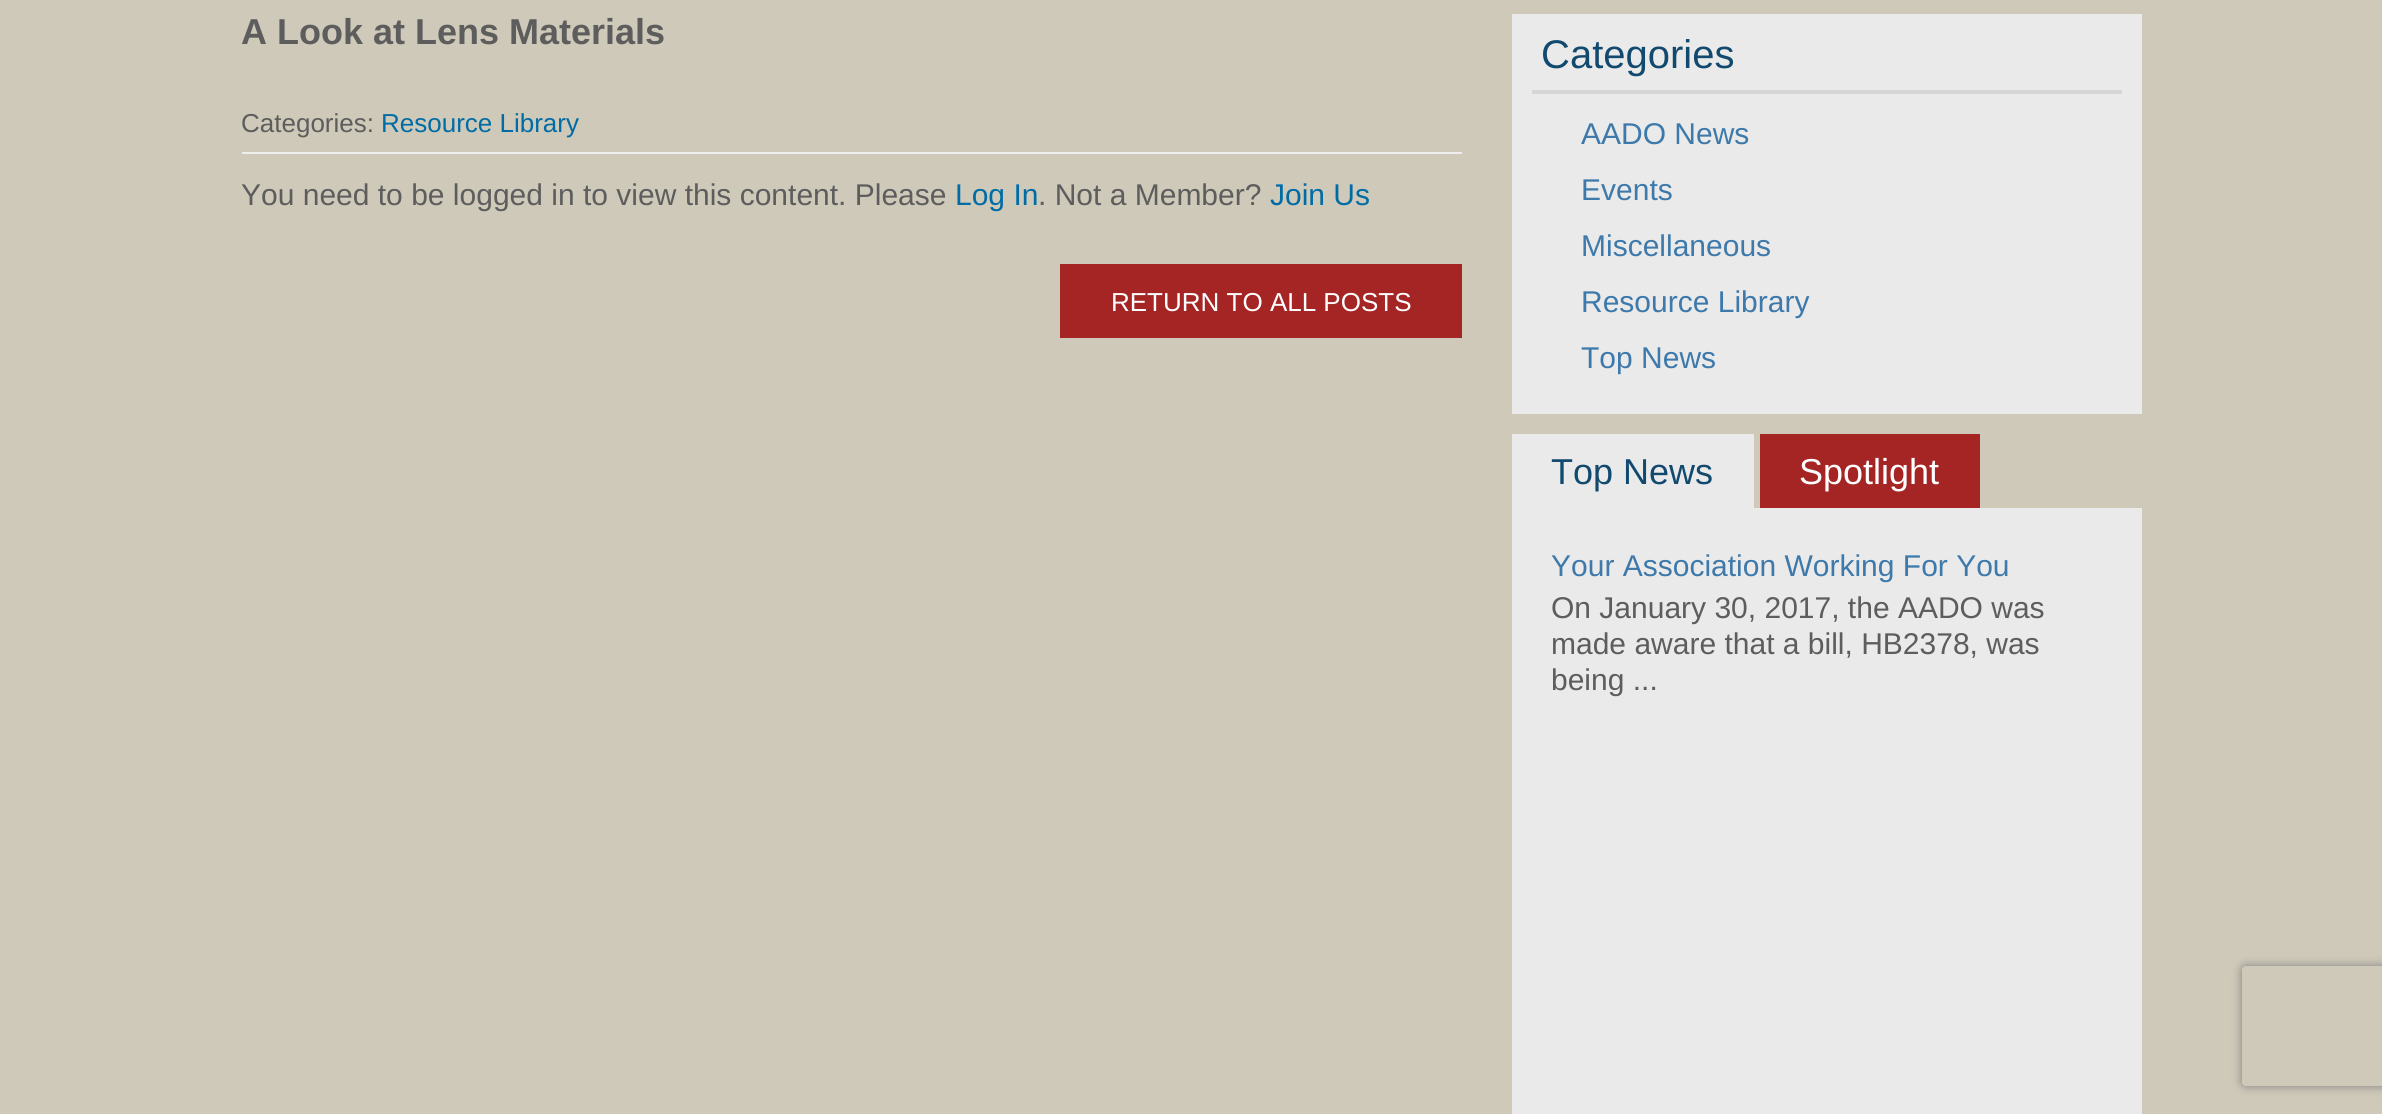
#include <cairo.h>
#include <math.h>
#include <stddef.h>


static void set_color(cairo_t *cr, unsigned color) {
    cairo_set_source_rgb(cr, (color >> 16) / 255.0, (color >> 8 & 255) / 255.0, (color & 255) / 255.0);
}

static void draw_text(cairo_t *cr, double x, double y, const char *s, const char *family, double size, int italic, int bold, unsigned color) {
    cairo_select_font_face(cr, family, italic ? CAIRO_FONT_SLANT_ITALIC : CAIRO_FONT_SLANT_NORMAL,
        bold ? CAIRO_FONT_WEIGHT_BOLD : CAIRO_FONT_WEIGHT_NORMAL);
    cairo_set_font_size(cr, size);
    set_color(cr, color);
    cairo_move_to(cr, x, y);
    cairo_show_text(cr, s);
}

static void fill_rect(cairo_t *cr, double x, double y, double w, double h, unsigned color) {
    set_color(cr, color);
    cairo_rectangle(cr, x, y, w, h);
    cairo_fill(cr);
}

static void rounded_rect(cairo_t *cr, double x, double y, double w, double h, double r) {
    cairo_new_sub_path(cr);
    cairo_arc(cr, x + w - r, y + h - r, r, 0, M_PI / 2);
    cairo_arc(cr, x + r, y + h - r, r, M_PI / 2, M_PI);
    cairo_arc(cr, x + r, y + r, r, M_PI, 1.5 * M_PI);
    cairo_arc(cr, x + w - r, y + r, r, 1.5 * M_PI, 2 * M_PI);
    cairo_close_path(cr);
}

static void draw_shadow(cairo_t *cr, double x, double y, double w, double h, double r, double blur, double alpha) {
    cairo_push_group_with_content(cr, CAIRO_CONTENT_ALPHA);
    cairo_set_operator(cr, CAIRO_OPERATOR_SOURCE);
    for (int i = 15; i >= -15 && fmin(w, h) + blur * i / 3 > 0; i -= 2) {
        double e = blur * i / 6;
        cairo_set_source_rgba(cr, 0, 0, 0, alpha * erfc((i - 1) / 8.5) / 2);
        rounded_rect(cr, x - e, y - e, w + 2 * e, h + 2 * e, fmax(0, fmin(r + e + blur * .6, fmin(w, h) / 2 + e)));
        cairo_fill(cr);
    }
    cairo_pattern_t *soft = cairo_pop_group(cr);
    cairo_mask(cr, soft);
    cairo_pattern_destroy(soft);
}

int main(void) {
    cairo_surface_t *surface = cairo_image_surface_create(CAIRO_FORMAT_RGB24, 2382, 1114);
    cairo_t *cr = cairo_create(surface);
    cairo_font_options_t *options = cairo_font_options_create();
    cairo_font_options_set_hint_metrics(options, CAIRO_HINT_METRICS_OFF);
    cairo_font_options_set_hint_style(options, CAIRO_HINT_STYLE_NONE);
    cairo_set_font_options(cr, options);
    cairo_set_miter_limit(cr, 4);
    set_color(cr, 0xCFC9B9);
    cairo_paint(cr);
    draw_text(cr, 241, 44, "A Look at Lens Materials", "Liberation Sans", 36, 0, 1, 0x5D5D5D);
    fill_rect(cr, 242, 152, 1220, 2, 0xEEEEEE);
    draw_text(cr, 241, 132, "Categories:", "Liberation Sans", 26, 0, 0, 0x5D5D5D);
    draw_text(cr, 381, 132, "Resource Library", "Liberation Sans", 26, 0, 0, 0x006CA5);
    draw_text(cr, 241, 205, "You need to be logged in to view this content. Please", "Liberation Sans", 30, 0, 0, 0x5D5D5D);
    draw_text(cr, 955, 205, "Log In", "Liberation Sans", 30, 0, 0, 0x006CA5);
    draw_text(cr, 1038, 205, ". Not a Member?", "Liberation Sans", 30, 0, 0, 0x5D5D5D);
    draw_text(cr, 1270, 205, "Join Us", "Liberation Sans", 30, 0, 0, 0x006CA5);
    fill_rect(cr, 1060, 264, 402, 74, 0xA52525);
    draw_text(cr, 1111, 311, "RETURN TO ALL POSTS", "Liberation Sans", 26, 0, 0, 0xFFFFFF);
    fill_rect(cr, 1512, 14, 630, 400, 0xEAEAEA);
    fill_rect(cr, 1532, 90, 590, 4, 0xD6D6D6);
    draw_text(cr, 1541, 68, "Categories", "Liberation Sans", 40, 0, 0, 0x12496E);
    draw_text(cr, 1581, 144, "AADO News", "Liberation Sans", 30, 0, 0, 0x3D79AA);
    draw_text(cr, 1581, 200, "Events", "Liberation Sans", 30, 0, 0, 0x3D79AA);
    draw_text(cr, 1581, 256, "Miscellaneous", "Liberation Sans", 30, 0, 0, 0x3D79AA);
    draw_text(cr, 1581, 312, "Resource Library", "Liberation Sans", 30, 0, 0, 0x3D79AA);
    draw_text(cr, 1581, 368, "Top News", "Liberation Sans", 30, 0, 0, 0x3D79AA);
    fill_rect(cr, 1512, 434, 242, 74, 0xEAEAEA);
    draw_text(cr, 1551, 484, "Top News", "Liberation Sans", 36, 0, 0, 0x12496E);
    fill_rect(cr, 1760, 434, 220, 74, 0xA52525);
    draw_text(cr, 1799, 484, "Spotlight", "Liberation Sans", 36, 0, 0, 0xFFFFFF);
    fill_rect(cr, 1512, 508, 630, 606, 0xEAEAEA);
    draw_text(cr, 1551, 576, "Your Association Working For You", "Liberation Sans", 30, 0, 0, 0x3D79AA);
    draw_text(cr, 1551, 618, "On January 30, 2017, the AADO was", "Liberation Sans", 30, 0, 0, 0x5D5D5D);
    draw_text(cr, 1551, 654, "made aware that a bill, HB2378, was", "Liberation Sans", 30, 0, 0, 0x5D5D5D);
    draw_text(cr, 1551, 690, "being ...", "Liberation Sans", 30, 0, 0, 0x5D5D5D);
    cairo_save(cr);
    cairo_set_fill_rule(cr, CAIRO_FILL_RULE_EVEN_ODD);
    cairo_new_path(cr);
    cairo_move_to(cr, 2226, 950);
    cairo_line_to(cr, 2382, 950);
    cairo_line_to(cr, 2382, 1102);
    cairo_line_to(cr, 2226, 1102);
    cairo_close_path(cr);
    cairo_move_to(cr, 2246, 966);
    cairo_line_to(cr, 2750, 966);
    cairo_curve_to(cr, 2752, 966, 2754, 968, 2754, 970);
    cairo_line_to(cr, 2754, 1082);
    cairo_curve_to(cr, 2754, 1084, 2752, 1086, 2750, 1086);
    cairo_line_to(cr, 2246, 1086);
    cairo_curve_to(cr, 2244, 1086, 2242, 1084, 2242, 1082);
    cairo_line_to(cr, 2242, 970);
    cairo_curve_to(cr, 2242, 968, 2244, 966, 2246, 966);
    cairo_close_path(cr);
    cairo_clip(cr);
    set_color(cr, 0x808080);
    draw_shadow(cr, 2242, 966, 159, 120, 4, 5, 1);
    cairo_restore(cr);
    cairo_surface_write_to_png(surface, "output.png");
    cairo_font_options_destroy(options);
    cairo_destroy(cr);
    cairo_surface_destroy(surface);
    return 0;
}
